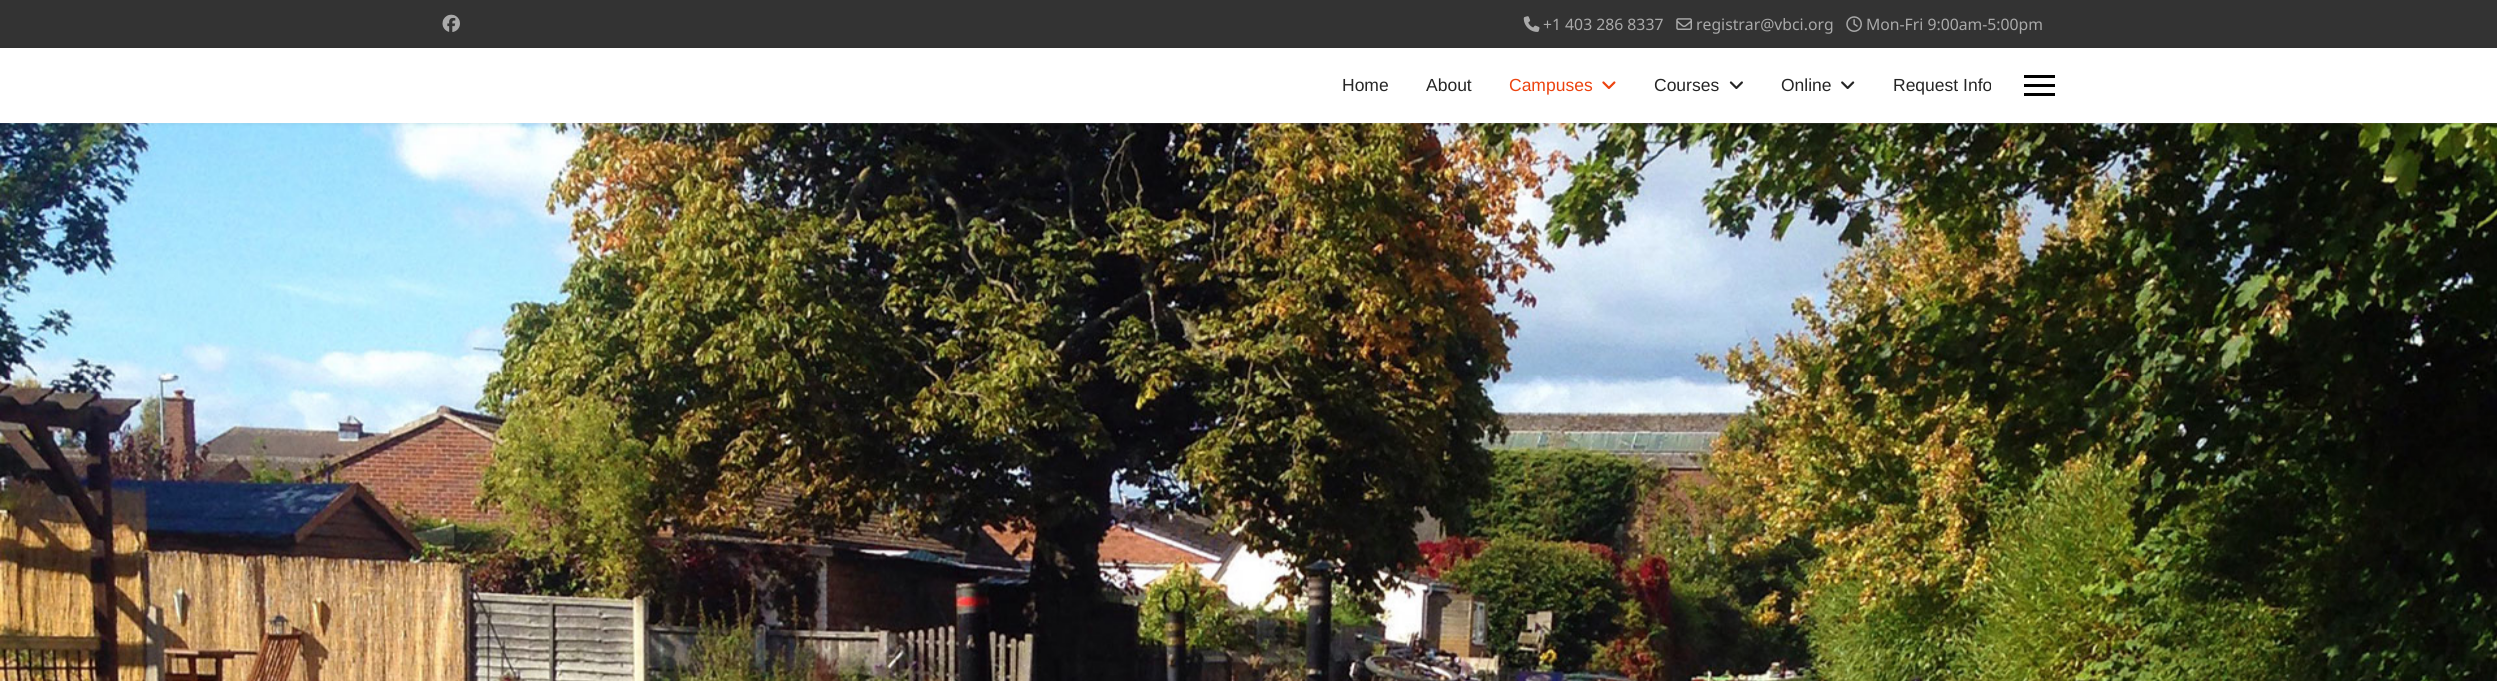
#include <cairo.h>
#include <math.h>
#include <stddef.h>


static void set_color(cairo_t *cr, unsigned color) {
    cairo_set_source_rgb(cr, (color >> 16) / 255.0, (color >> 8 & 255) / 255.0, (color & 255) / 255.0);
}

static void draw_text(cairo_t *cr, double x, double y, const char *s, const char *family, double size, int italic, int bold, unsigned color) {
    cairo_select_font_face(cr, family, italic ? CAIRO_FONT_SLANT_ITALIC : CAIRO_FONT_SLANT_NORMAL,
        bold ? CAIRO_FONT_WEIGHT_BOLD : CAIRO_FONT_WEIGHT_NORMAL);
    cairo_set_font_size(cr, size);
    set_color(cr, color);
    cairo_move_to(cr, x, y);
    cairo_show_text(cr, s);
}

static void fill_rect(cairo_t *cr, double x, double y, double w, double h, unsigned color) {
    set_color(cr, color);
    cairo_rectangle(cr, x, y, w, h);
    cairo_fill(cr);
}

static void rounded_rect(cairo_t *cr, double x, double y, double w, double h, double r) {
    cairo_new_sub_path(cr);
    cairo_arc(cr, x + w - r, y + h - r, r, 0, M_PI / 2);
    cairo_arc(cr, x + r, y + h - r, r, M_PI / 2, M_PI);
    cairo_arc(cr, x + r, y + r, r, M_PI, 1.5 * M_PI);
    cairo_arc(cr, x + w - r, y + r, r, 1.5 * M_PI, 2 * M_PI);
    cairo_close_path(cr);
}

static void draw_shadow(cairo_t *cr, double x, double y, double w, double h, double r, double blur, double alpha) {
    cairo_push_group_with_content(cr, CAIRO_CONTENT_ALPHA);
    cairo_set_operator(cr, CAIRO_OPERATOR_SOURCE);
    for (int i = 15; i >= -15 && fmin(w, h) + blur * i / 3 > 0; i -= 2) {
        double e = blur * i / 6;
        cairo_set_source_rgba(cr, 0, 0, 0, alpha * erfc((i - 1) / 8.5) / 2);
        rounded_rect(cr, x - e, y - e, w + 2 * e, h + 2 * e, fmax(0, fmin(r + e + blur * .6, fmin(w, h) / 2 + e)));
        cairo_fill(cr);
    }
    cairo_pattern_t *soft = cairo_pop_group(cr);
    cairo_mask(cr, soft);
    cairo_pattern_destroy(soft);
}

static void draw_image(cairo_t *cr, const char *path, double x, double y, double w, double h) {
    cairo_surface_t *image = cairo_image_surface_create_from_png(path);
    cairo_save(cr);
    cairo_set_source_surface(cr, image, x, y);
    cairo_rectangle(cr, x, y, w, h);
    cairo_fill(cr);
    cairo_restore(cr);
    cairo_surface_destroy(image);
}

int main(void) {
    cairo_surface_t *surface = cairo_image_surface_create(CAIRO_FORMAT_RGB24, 2497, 681);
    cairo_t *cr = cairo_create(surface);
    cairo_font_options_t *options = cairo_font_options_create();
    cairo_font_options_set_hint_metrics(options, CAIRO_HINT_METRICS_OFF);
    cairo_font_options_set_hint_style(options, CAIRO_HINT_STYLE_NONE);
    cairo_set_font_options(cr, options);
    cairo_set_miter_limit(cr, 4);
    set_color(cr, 0xFFFFFF);
    cairo_paint(cr);
    fill_rect(cr, 0, 0, 2497, 48, 0x333333);
    draw_image(cr, "assets/img1.png", 442, 14, 18, 18);
    draw_image(cr, "assets/img2.png", 1523, 16, 17, 16);
    draw_text(cr, 1543, 30, "+1 403 286 8337", "Noto Sans", 15.75, 0, 0, 0xAAAAAA);
    draw_image(cr, "assets/img3.png", 1676, 18, 16, 12);
    draw_text(cr, 1696, 30, "registrar@vbci.org", "Noto Sans", 15.75, 0, 0, 0xAAAAAA);
    draw_image(cr, "assets/img4.png", 1846, 16, 16, 16);
    draw_text(cr, 1866, 30, "Mon-Fri 9:00am-5:00pm", "Noto Sans", 15.75, 0, 0, 0xAAAAAA);
    draw_image(cr, "assets/img8.png", 0, 123, 2497, 558);
    set_color(cr, 0x000000);
    draw_shadow(cr, 0, 48, 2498, 75, 0, 2.5, 0.1);
    fill_rect(cr, 0, 48, 2497, 75, 0xFFFFFF);
    draw_text(cr, 1342, 91, "Home", "Liberation Sans", 17.5, 0, 0, 0x252525);
    draw_text(cr, 1426, 91, "About", "Liberation Sans", 17.5, 0, 0, 0x252525);
    draw_text(cr, 1509, 91, "Campuses", "Liberation Sans", 17.5, 0, 0, 0xEC430F);
    draw_image(cr, "assets/img5.png", 1602, 81, 14, 8);
    draw_text(cr, 1654, 91, "Courses", "Liberation Sans", 17.5, 0, 0, 0x252525);
    draw_image(cr, "assets/img6.png", 1729, 81, 14, 8);
    draw_text(cr, 1781, 91, "Online", "Liberation Sans", 17.5, 0, 0, 0x252525);
    draw_image(cr, "assets/img7.png", 1841, 81, 14, 8);
    draw_text(cr, 1893, 91, "Request Info", "Liberation Sans", 17.5, 0, 0, 0x252525);
    fill_rect(cr, 2024, 75, 31, 3, 0x000000);
    fill_rect(cr, 2024, 84, 31, 3, 0x000000);
    fill_rect(cr, 2024, 93, 31, 3, 0x000000);
    cairo_surface_write_to_png(surface, "output.png");
    cairo_font_options_destroy(options);
    cairo_destroy(cr);
    cairo_surface_destroy(surface);
    return 0;
}
